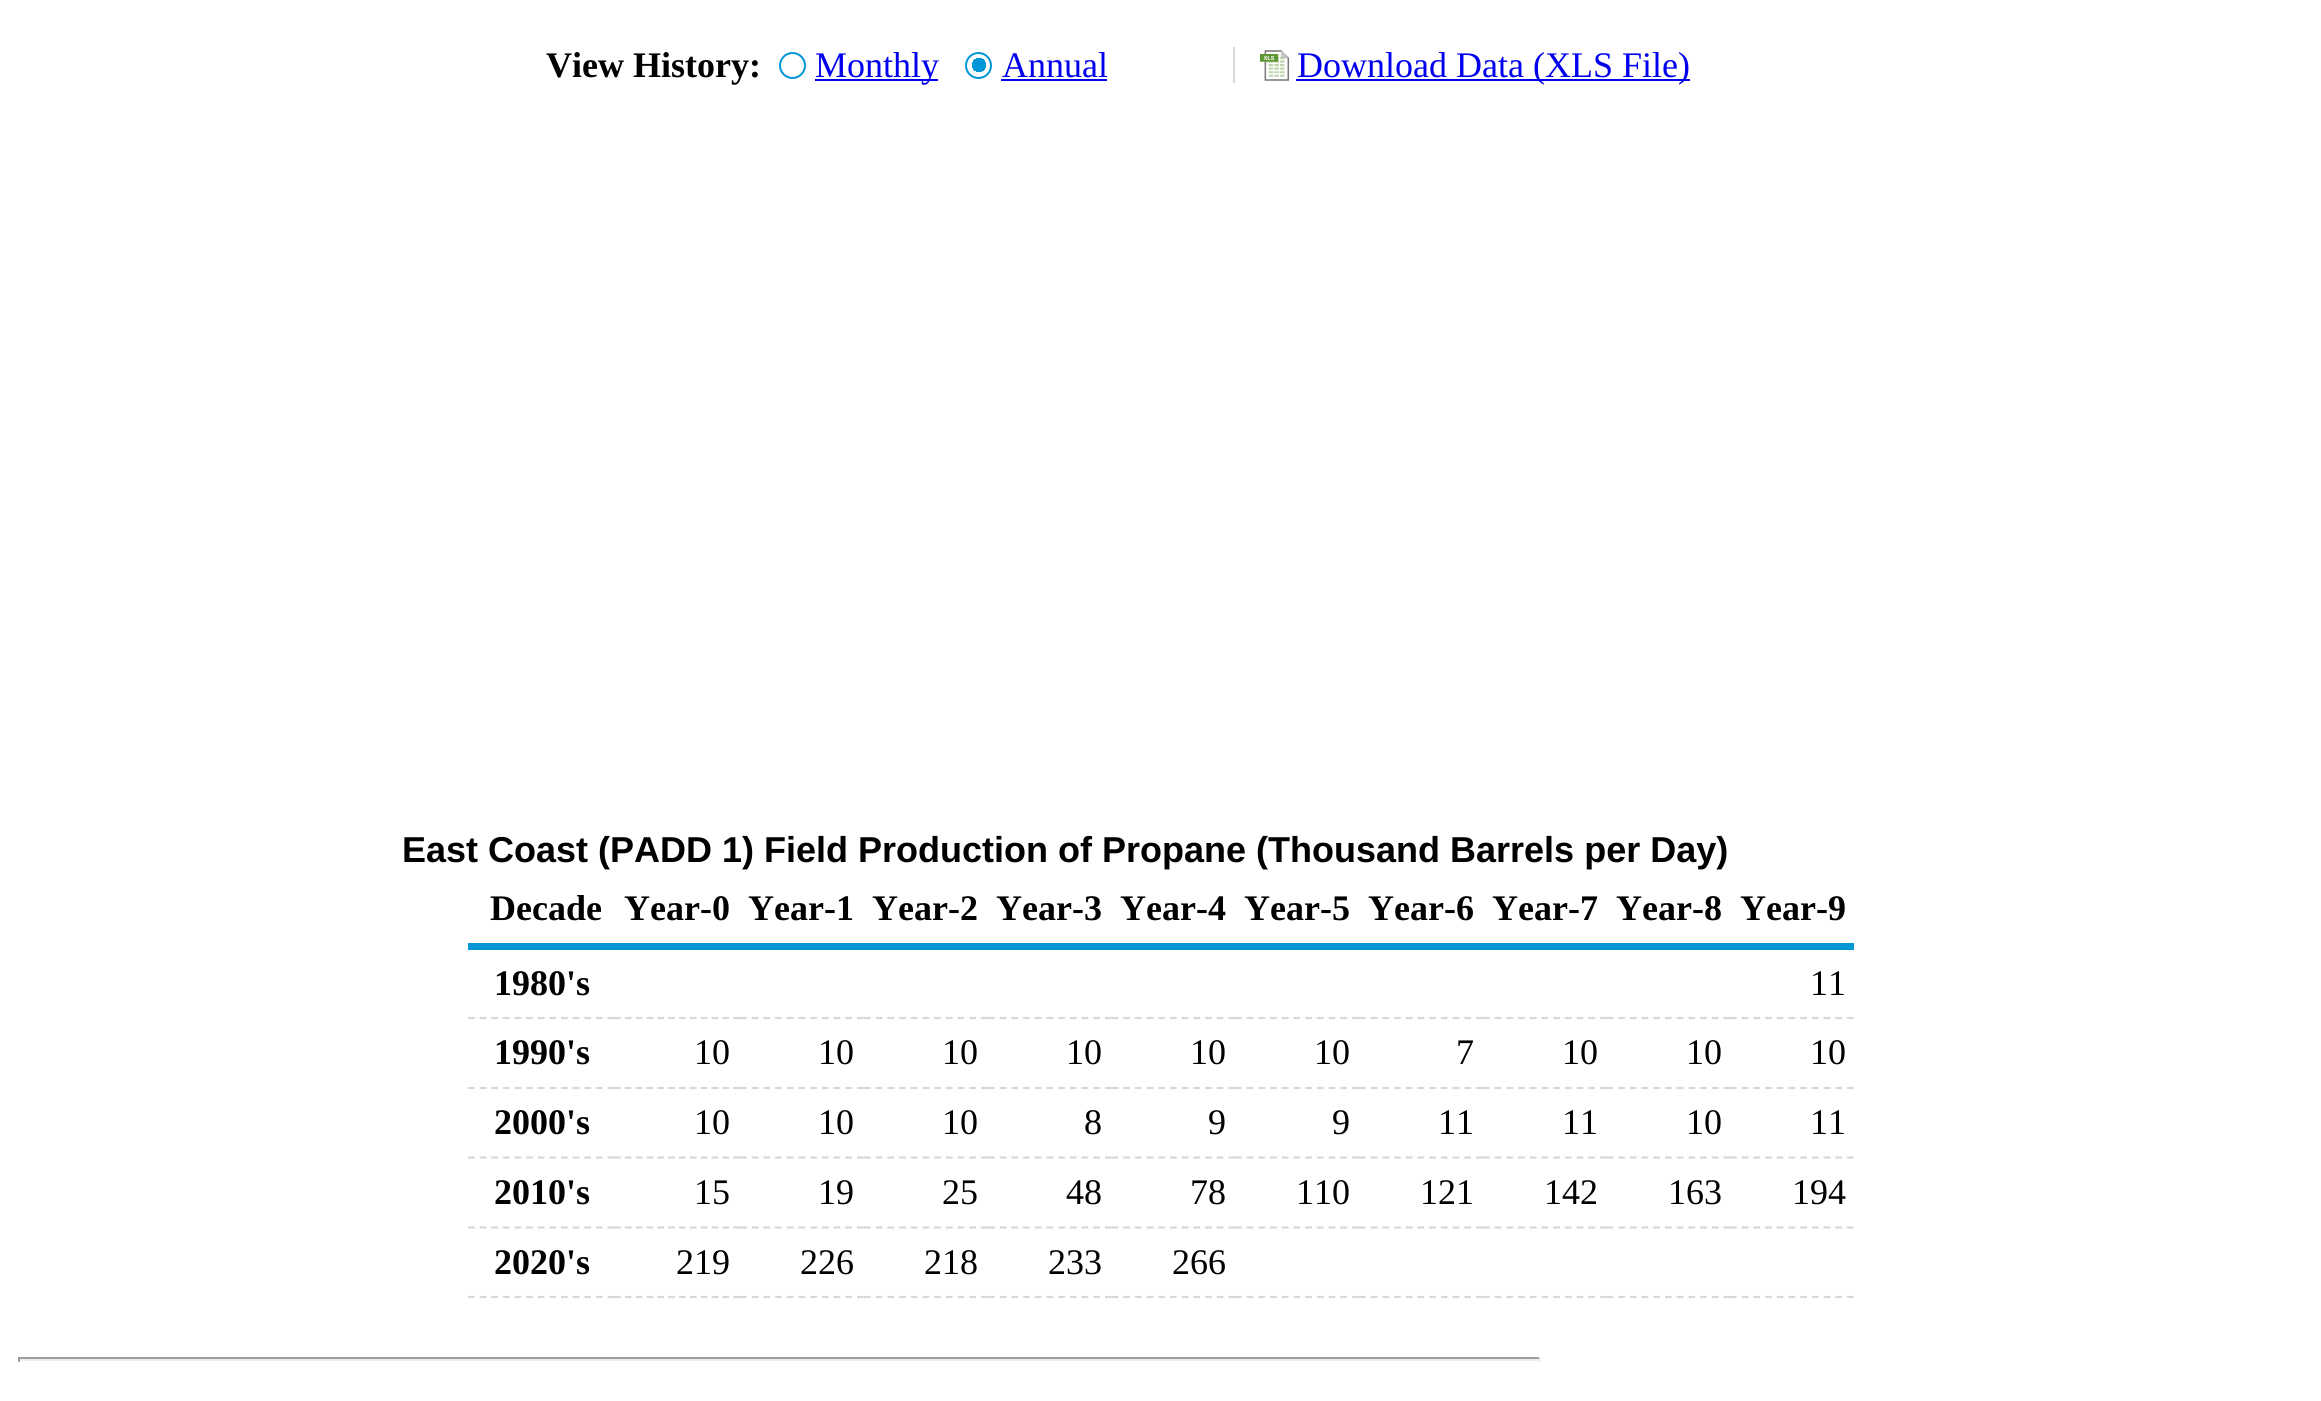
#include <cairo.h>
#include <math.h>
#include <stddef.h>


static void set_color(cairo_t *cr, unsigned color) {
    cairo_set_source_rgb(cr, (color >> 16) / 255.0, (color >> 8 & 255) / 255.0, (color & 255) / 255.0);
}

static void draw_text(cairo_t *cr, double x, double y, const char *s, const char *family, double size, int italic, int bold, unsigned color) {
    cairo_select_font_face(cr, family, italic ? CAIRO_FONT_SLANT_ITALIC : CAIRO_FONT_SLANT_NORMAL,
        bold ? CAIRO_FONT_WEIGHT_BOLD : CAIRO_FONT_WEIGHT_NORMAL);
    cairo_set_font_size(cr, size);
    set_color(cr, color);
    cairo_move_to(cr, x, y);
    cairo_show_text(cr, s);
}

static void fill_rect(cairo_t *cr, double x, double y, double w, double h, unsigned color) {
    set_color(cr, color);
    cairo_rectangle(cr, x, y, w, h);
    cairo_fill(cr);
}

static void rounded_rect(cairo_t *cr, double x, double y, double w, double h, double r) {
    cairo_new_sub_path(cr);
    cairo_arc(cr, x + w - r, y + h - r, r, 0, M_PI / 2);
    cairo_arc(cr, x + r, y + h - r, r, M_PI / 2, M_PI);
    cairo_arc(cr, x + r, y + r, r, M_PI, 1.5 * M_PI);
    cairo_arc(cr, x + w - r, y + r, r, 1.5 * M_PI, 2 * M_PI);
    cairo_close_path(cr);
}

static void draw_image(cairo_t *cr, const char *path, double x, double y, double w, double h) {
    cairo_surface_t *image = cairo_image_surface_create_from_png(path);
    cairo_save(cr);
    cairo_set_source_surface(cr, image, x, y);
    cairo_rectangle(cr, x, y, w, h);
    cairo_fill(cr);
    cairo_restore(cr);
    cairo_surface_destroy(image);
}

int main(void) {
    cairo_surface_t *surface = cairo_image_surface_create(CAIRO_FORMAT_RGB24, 2321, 1401);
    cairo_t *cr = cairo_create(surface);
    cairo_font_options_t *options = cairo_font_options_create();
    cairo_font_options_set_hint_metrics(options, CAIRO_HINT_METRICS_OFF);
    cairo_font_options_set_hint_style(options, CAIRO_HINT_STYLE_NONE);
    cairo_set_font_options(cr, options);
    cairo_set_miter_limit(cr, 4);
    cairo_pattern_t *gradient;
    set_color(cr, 0xFFFFFF);
    cairo_paint(cr);
    draw_text(cr, 546, 77, "View History:", "Liberation Serif", 36, 0, 1, 0x000000);
    cairo_new_path(cr);
    cairo_arc(cr, 792.5, 65.5, 12.5, 0, 2 * M_PI);
    set_color(cr, 0x0096D7);
    cairo_stroke(cr);
    fill_rect(cr, 815, 79, 123, 2, 0x0000EE);
    draw_text(cr, 815, 77, "Monthly", "Liberation Serif", 36, 0, 0, 0x0000EE);
    cairo_save(cr);
    rounded_rect(cr, 965, 52, 27, 27, 13.5);
    cairo_clip(cr);
    gradient = cairo_pattern_create_radial(979, 65, 0, 979, 65, 16);
    cairo_pattern_add_color_stop_rgba(gradient, 0, 0, 0.588, 0.843, 1);
    cairo_pattern_add_color_stop_rgba(gradient, 0.45, 0, 0.588, 0.843, 1);
    cairo_pattern_add_color_stop_rgba(gradient, 0.45, 1, 1, 1, 1);
    cairo_set_source(cr, gradient);
    cairo_pattern_destroy(gradient);
    cairo_rectangle(cr, 968, 54, 22, 23);
    cairo_fill(cr);
    cairo_restore(cr);
    cairo_arc(cr, 978.5, 65.5, 12.5, 0, 2 * M_PI);
    set_color(cr, 0x0096D7);
    cairo_stroke(cr);
    draw_text(cr, 1002, 77, "Annual", "Liberation Serif", 36, 0, 0, 0x0000EE);
    fill_rect(cr, 1001, 79, 106, 2, 0x0000EE);
    fill_rect(cr, 1233, 47, 2, 36, 0xD7D7D7);
    draw_image(cr, "assets/img1.png", 1260, 50, 30, 31);
    fill_rect(cr, 1296, 79, 394, 2, 0x0000EE);
    draw_text(cr, 1297, 77, "Download Data (XLS File)", "Liberation Serif", 36, 0, 0, 0x0000EE);
    draw_text(cr, 402, 862, "East Coast (PADD 1) Field Production of Propane (Thousand Barrels per Day)", "Liberation Sans", 36, 0, 1, 0x000000);
    fill_rect(cr, 468, 943, 1386, 7, 0x0096D7);
    draw_text(cr, 490, 920, "Decade", "Liberation Serif", 36, 0, 1, 0x000000);
    draw_text(cr, 624, 920, "Year-0", "Liberation Serif", 36, 0, 1, 0x000000);
    draw_text(cr, 748, 920, "Year-1", "Liberation Serif", 36, 0, 1, 0x000000);
    draw_text(cr, 872, 920, "Year-2", "Liberation Serif", 36, 0, 1, 0x000000);
    draw_text(cr, 996, 920, "Year-3", "Liberation Serif", 36, 0, 1, 0x000000);
    draw_text(cr, 1120, 920, "Year-4", "Liberation Serif", 36, 0, 1, 0x000000);
    draw_text(cr, 1244, 920, "Year-5", "Liberation Serif", 36, 0, 1, 0x000000);
    draw_text(cr, 1368, 920, "Year-6", "Liberation Serif", 36, 0, 1, 0x000000);
    draw_text(cr, 1492, 920, "Year-7", "Liberation Serif", 36, 0, 1, 0x000000);
    draw_text(cr, 1616, 920, "Year-8", "Liberation Serif", 36, 0, 1, 0x000000);
    draw_text(cr, 1740, 920, "Year-9", "Liberation Serif", 36, 0, 1, 0x000000);
    cairo_new_path(cr);
    cairo_move_to(cr, 468, 1018);
    cairo_line_to(cr, 614, 1018);
    set_color(cr, 0xD8D8D8);
    cairo_set_line_width(cr, 2.2);
    cairo_set_dash(cr, (double[]){6.75, 4.88}, 2, 0);
    cairo_stroke(cr);
    draw_text(cr, 494, 995, "1980's", "Liberation Serif", 36, 0, 1, 0x000000);
    cairo_new_path(cr);
    cairo_move_to(cr, 1730, 1018);
    cairo_line_to(cr, 1854, 1018);
    set_color(cr, 0xD8D8D8);
    cairo_set_dash(cr, (double[]){6.75, 4.95}, 2, 0);
    cairo_stroke(cr);
    draw_text(cr, 1810, 995, "11", "Liberation Serif", 36, 0, 0, 0x000000);
    cairo_new_path(cr);
    cairo_move_to(cr, 614, 1018);
    cairo_line_to(cr, 740, 1018);
    set_color(cr, 0xD8D8D8);
    cairo_set_dash(cr, (double[]){6.75, 4.09}, 2, 0);
    cairo_stroke(cr);
    cairo_new_path(cr);
    cairo_move_to(cr, 740, 1018);
    cairo_line_to(cr, 864, 1018);
    cairo_set_dash(cr, (double[]){6.75, 4.95}, 2, 0);
    cairo_stroke(cr);
    cairo_new_path(cr);
    cairo_move_to(cr, 864, 1018);
    cairo_line_to(cr, 988, 1018);
    cairo_stroke(cr);
    cairo_new_path(cr);
    cairo_move_to(cr, 988, 1018);
    cairo_line_to(cr, 1111.5, 1018);
    cairo_stroke(cr);
    cairo_new_path(cr);
    cairo_move_to(cr, 1111.5, 1018);
    cairo_line_to(cr, 1235, 1018);
    cairo_stroke(cr);
    cairo_new_path(cr);
    cairo_move_to(cr, 1235, 1018);
    cairo_line_to(cr, 1359, 1018);
    cairo_stroke(cr);
    cairo_new_path(cr);
    cairo_move_to(cr, 1359, 1018);
    cairo_line_to(cr, 1483, 1018);
    cairo_stroke(cr);
    cairo_new_path(cr);
    cairo_move_to(cr, 1483, 1018);
    cairo_line_to(cr, 1606.5, 1018);
    cairo_stroke(cr);
    cairo_new_path(cr);
    cairo_move_to(cr, 1606.5, 1018);
    cairo_line_to(cr, 1730, 1018);
    cairo_stroke(cr);
    cairo_new_path(cr);
    cairo_move_to(cr, 468, 1088);
    cairo_line_to(cr, 614, 1088);
    cairo_set_dash(cr, (double[]){6.75, 4.88}, 2, 0);
    cairo_stroke(cr);
    draw_text(cr, 494, 1064, "1990's", "Liberation Serif", 36, 0, 1, 0x000000);
    cairo_new_path(cr);
    cairo_move_to(cr, 614, 1088);
    cairo_line_to(cr, 740, 1088);
    set_color(cr, 0xD8D8D8);
    cairo_set_dash(cr, (double[]){6.75, 4.09}, 2, 0);
    cairo_stroke(cr);
    draw_text(cr, 694, 1064, "10", "Liberation Serif", 36, 0, 0, 0x000000);
    cairo_new_path(cr);
    cairo_move_to(cr, 740, 1088);
    cairo_line_to(cr, 864, 1088);
    set_color(cr, 0xD8D8D8);
    cairo_set_dash(cr, (double[]){6.75, 4.95}, 2, 0);
    cairo_stroke(cr);
    draw_text(cr, 818, 1064, "10", "Liberation Serif", 36, 0, 0, 0x000000);
    cairo_new_path(cr);
    cairo_move_to(cr, 864, 1088);
    cairo_line_to(cr, 988, 1088);
    set_color(cr, 0xD8D8D8);
    cairo_stroke(cr);
    draw_text(cr, 942, 1064, "10", "Liberation Serif", 36, 0, 0, 0x000000);
    cairo_new_path(cr);
    cairo_move_to(cr, 988, 1088);
    cairo_line_to(cr, 1111.5, 1088);
    set_color(cr, 0xD8D8D8);
    cairo_stroke(cr);
    draw_text(cr, 1066, 1064, "10", "Liberation Serif", 36, 0, 0, 0x000000);
    cairo_new_path(cr);
    cairo_move_to(cr, 1111.5, 1088);
    cairo_line_to(cr, 1235, 1088);
    set_color(cr, 0xD8D8D8);
    cairo_stroke(cr);
    draw_text(cr, 1190, 1064, "10", "Liberation Serif", 36, 0, 0, 0x000000);
    cairo_new_path(cr);
    cairo_move_to(cr, 1235, 1088);
    cairo_line_to(cr, 1359, 1088);
    set_color(cr, 0xD8D8D8);
    cairo_stroke(cr);
    draw_text(cr, 1314, 1064, "10", "Liberation Serif", 36, 0, 0, 0x000000);
    cairo_new_path(cr);
    cairo_move_to(cr, 1359, 1088);
    cairo_line_to(cr, 1483, 1088);
    set_color(cr, 0xD8D8D8);
    cairo_stroke(cr);
    draw_text(cr, 1456, 1064, "7", "Liberation Serif", 36, 0, 0, 0x000000);
    cairo_new_path(cr);
    cairo_move_to(cr, 1483, 1088);
    cairo_line_to(cr, 1606.5, 1088);
    set_color(cr, 0xD8D8D8);
    cairo_stroke(cr);
    draw_text(cr, 1562, 1064, "10", "Liberation Serif", 36, 0, 0, 0x000000);
    cairo_new_path(cr);
    cairo_move_to(cr, 1606.5, 1088);
    cairo_line_to(cr, 1730, 1088);
    set_color(cr, 0xD8D8D8);
    cairo_stroke(cr);
    draw_text(cr, 1686, 1064, "10", "Liberation Serif", 36, 0, 0, 0x000000);
    cairo_new_path(cr);
    cairo_move_to(cr, 1730, 1088);
    cairo_line_to(cr, 1854, 1088);
    set_color(cr, 0xD8D8D8);
    cairo_stroke(cr);
    draw_text(cr, 1810, 1064, "10", "Liberation Serif", 36, 0, 0, 0x000000);
    cairo_new_path(cr);
    cairo_move_to(cr, 468, 1157.5);
    cairo_line_to(cr, 614, 1157.5);
    set_color(cr, 0xD8D8D8);
    cairo_set_dash(cr, (double[]){6.75, 4.88}, 2, 0);
    cairo_stroke(cr);
    draw_text(cr, 494, 1134, "2000's", "Liberation Serif", 36, 0, 1, 0x000000);
    cairo_new_path(cr);
    cairo_move_to(cr, 614, 1157.5);
    cairo_line_to(cr, 740, 1157.5);
    set_color(cr, 0xD8D8D8);
    cairo_set_dash(cr, (double[]){6.75, 4.09}, 2, 0);
    cairo_stroke(cr);
    draw_text(cr, 694, 1134, "10", "Liberation Serif", 36, 0, 0, 0x000000);
    cairo_new_path(cr);
    cairo_move_to(cr, 740, 1157.5);
    cairo_line_to(cr, 864, 1157.5);
    set_color(cr, 0xD8D8D8);
    cairo_set_dash(cr, (double[]){6.75, 4.95}, 2, 0);
    cairo_stroke(cr);
    draw_text(cr, 818, 1134, "10", "Liberation Serif", 36, 0, 0, 0x000000);
    cairo_new_path(cr);
    cairo_move_to(cr, 864, 1157.5);
    cairo_line_to(cr, 988, 1157.5);
    set_color(cr, 0xD8D8D8);
    cairo_stroke(cr);
    draw_text(cr, 942, 1134, "10", "Liberation Serif", 36, 0, 0, 0x000000);
    cairo_new_path(cr);
    cairo_move_to(cr, 988, 1157.5);
    cairo_line_to(cr, 1111.5, 1157.5);
    set_color(cr, 0xD8D8D8);
    cairo_stroke(cr);
    draw_text(cr, 1084, 1134, "8", "Liberation Serif", 36, 0, 0, 0x000000);
    cairo_new_path(cr);
    cairo_move_to(cr, 1111.5, 1157.5);
    cairo_line_to(cr, 1235, 1157.5);
    set_color(cr, 0xD8D8D8);
    cairo_stroke(cr);
    draw_text(cr, 1208, 1134, "9", "Liberation Serif", 36, 0, 0, 0x000000);
    cairo_new_path(cr);
    cairo_move_to(cr, 1235, 1157.5);
    cairo_line_to(cr, 1359, 1157.5);
    set_color(cr, 0xD8D8D8);
    cairo_stroke(cr);
    draw_text(cr, 1332, 1134, "9", "Liberation Serif", 36, 0, 0, 0x000000);
    cairo_new_path(cr);
    cairo_move_to(cr, 1359, 1157.5);
    cairo_line_to(cr, 1483, 1157.5);
    set_color(cr, 0xD8D8D8);
    cairo_stroke(cr);
    draw_text(cr, 1438, 1134, "11", "Liberation Serif", 36, 0, 0, 0x000000);
    cairo_new_path(cr);
    cairo_move_to(cr, 1483, 1157.5);
    cairo_line_to(cr, 1606.5, 1157.5);
    set_color(cr, 0xD8D8D8);
    cairo_stroke(cr);
    draw_text(cr, 1562, 1134, "11", "Liberation Serif", 36, 0, 0, 0x000000);
    cairo_new_path(cr);
    cairo_move_to(cr, 1606.5, 1157.5);
    cairo_line_to(cr, 1730, 1157.5);
    set_color(cr, 0xD8D8D8);
    cairo_stroke(cr);
    draw_text(cr, 1686, 1134, "10", "Liberation Serif", 36, 0, 0, 0x000000);
    cairo_new_path(cr);
    cairo_move_to(cr, 1730, 1157.5);
    cairo_line_to(cr, 1854, 1157.5);
    set_color(cr, 0xD8D8D8);
    cairo_stroke(cr);
    draw_text(cr, 1810, 1134, "11", "Liberation Serif", 36, 0, 0, 0x000000);
    cairo_new_path(cr);
    cairo_move_to(cr, 468, 1227.5);
    cairo_line_to(cr, 614, 1227.5);
    set_color(cr, 0xD8D8D8);
    cairo_set_dash(cr, (double[]){6.75, 4.88}, 2, 0);
    cairo_stroke(cr);
    draw_text(cr, 494, 1204, "2010's", "Liberation Serif", 36, 0, 1, 0x000000);
    cairo_new_path(cr);
    cairo_move_to(cr, 614, 1227.5);
    cairo_line_to(cr, 740, 1227.5);
    set_color(cr, 0xD8D8D8);
    cairo_set_dash(cr, (double[]){6.75, 4.09}, 2, 0);
    cairo_stroke(cr);
    draw_text(cr, 694, 1204, "15", "Liberation Serif", 36, 0, 0, 0x000000);
    cairo_new_path(cr);
    cairo_move_to(cr, 740, 1227.5);
    cairo_line_to(cr, 864, 1227.5);
    set_color(cr, 0xD8D8D8);
    cairo_set_dash(cr, (double[]){6.75, 4.95}, 2, 0);
    cairo_stroke(cr);
    draw_text(cr, 818, 1204, "19", "Liberation Serif", 36, 0, 0, 0x000000);
    cairo_new_path(cr);
    cairo_move_to(cr, 864, 1227.5);
    cairo_line_to(cr, 988, 1227.5);
    set_color(cr, 0xD8D8D8);
    cairo_stroke(cr);
    draw_text(cr, 942, 1204, "25", "Liberation Serif", 36, 0, 0, 0x000000);
    cairo_new_path(cr);
    cairo_move_to(cr, 988, 1227.5);
    cairo_line_to(cr, 1111.5, 1227.5);
    set_color(cr, 0xD8D8D8);
    cairo_stroke(cr);
    draw_text(cr, 1066, 1204, "48", "Liberation Serif", 36, 0, 0, 0x000000);
    cairo_new_path(cr);
    cairo_move_to(cr, 1111.5, 1227.5);
    cairo_line_to(cr, 1235, 1227.5);
    set_color(cr, 0xD8D8D8);
    cairo_stroke(cr);
    draw_text(cr, 1190, 1204, "78", "Liberation Serif", 36, 0, 0, 0x000000);
    cairo_new_path(cr);
    cairo_move_to(cr, 1235, 1227.5);
    cairo_line_to(cr, 1359, 1227.5);
    set_color(cr, 0xD8D8D8);
    cairo_stroke(cr);
    draw_text(cr, 1296, 1204, "110", "Liberation Serif", 36, 0, 0, 0x000000);
    cairo_new_path(cr);
    cairo_move_to(cr, 1359, 1227.5);
    cairo_line_to(cr, 1483, 1227.5);
    set_color(cr, 0xD8D8D8);
    cairo_stroke(cr);
    draw_text(cr, 1420, 1204, "121", "Liberation Serif", 36, 0, 0, 0x000000);
    cairo_new_path(cr);
    cairo_move_to(cr, 1483, 1227.5);
    cairo_line_to(cr, 1606.5, 1227.5);
    set_color(cr, 0xD8D8D8);
    cairo_stroke(cr);
    draw_text(cr, 1544, 1204, "142", "Liberation Serif", 36, 0, 0, 0x000000);
    cairo_new_path(cr);
    cairo_move_to(cr, 1606.5, 1227.5);
    cairo_line_to(cr, 1730, 1227.5);
    set_color(cr, 0xD8D8D8);
    cairo_stroke(cr);
    draw_text(cr, 1668, 1204, "163", "Liberation Serif", 36, 0, 0, 0x000000);
    cairo_new_path(cr);
    cairo_move_to(cr, 1730, 1227.5);
    cairo_line_to(cr, 1854, 1227.5);
    set_color(cr, 0xD8D8D8);
    cairo_stroke(cr);
    draw_text(cr, 1792, 1204, "194", "Liberation Serif", 36, 0, 0, 0x000000);
    cairo_new_path(cr);
    cairo_move_to(cr, 468, 1297);
    cairo_line_to(cr, 614, 1297);
    set_color(cr, 0xD8D8D8);
    cairo_set_dash(cr, (double[]){6.75, 4.88}, 2, 0);
    cairo_stroke(cr);
    draw_text(cr, 494, 1274, "2020's", "Liberation Serif", 36, 0, 1, 0x000000);
    cairo_new_path(cr);
    cairo_move_to(cr, 614, 1297);
    cairo_line_to(cr, 740, 1297);
    set_color(cr, 0xD8D8D8);
    cairo_set_dash(cr, (double[]){6.75, 4.09}, 2, 0);
    cairo_stroke(cr);
    draw_text(cr, 676, 1274, "219", "Liberation Serif", 36, 0, 0, 0x000000);
    cairo_new_path(cr);
    cairo_move_to(cr, 740, 1297);
    cairo_line_to(cr, 864, 1297);
    set_color(cr, 0xD8D8D8);
    cairo_set_dash(cr, (double[]){6.75, 4.95}, 2, 0);
    cairo_stroke(cr);
    draw_text(cr, 800, 1274, "226", "Liberation Serif", 36, 0, 0, 0x000000);
    cairo_new_path(cr);
    cairo_move_to(cr, 864, 1297);
    cairo_line_to(cr, 988, 1297);
    set_color(cr, 0xD8D8D8);
    cairo_stroke(cr);
    draw_text(cr, 924, 1274, "218", "Liberation Serif", 36, 0, 0, 0x000000);
    cairo_new_path(cr);
    cairo_move_to(cr, 988, 1297);
    cairo_line_to(cr, 1111.5, 1297);
    set_color(cr, 0xD8D8D8);
    cairo_stroke(cr);
    draw_text(cr, 1048, 1274, "233", "Liberation Serif", 36, 0, 0, 0x000000);
    cairo_new_path(cr);
    cairo_move_to(cr, 1111.5, 1297);
    cairo_line_to(cr, 1235, 1297);
    set_color(cr, 0xD8D8D8);
    cairo_stroke(cr);
    draw_text(cr, 1172, 1274, "266", "Liberation Serif", 36, 0, 0, 0x000000);
    cairo_new_path(cr);
    cairo_move_to(cr, 1235, 1297);
    cairo_line_to(cr, 1359, 1297);
    set_color(cr, 0xD8D8D8);
    cairo_stroke(cr);
    cairo_new_path(cr);
    cairo_move_to(cr, 1359, 1297);
    cairo_line_to(cr, 1483, 1297);
    cairo_stroke(cr);
    cairo_new_path(cr);
    cairo_move_to(cr, 1483, 1297);
    cairo_line_to(cr, 1606.5, 1297);
    cairo_stroke(cr);
    cairo_new_path(cr);
    cairo_move_to(cr, 1606.5, 1297);
    cairo_line_to(cr, 1730, 1297);
    cairo_stroke(cr);
    cairo_new_path(cr);
    cairo_move_to(cr, 1730, 1297);
    cairo_line_to(cr, 1854, 1297);
    cairo_stroke(cr);
    fill_rect(cr, 18, 1357, 1523, 2, 0x9F9F9F);
    fill_rect(cr, 1539, 1357, 2, 5, 0xEEEEEE);
    fill_rect(cr, 18, 1359, 1523, 2, 0xEEEEEE);
    fill_rect(cr, 18, 1357, 2, 5, 0x9F9F9F);
    cairo_surface_write_to_png(surface, "output.png");
    cairo_font_options_destroy(options);
    cairo_destroy(cr);
    cairo_surface_destroy(surface);
    return 0;
}
